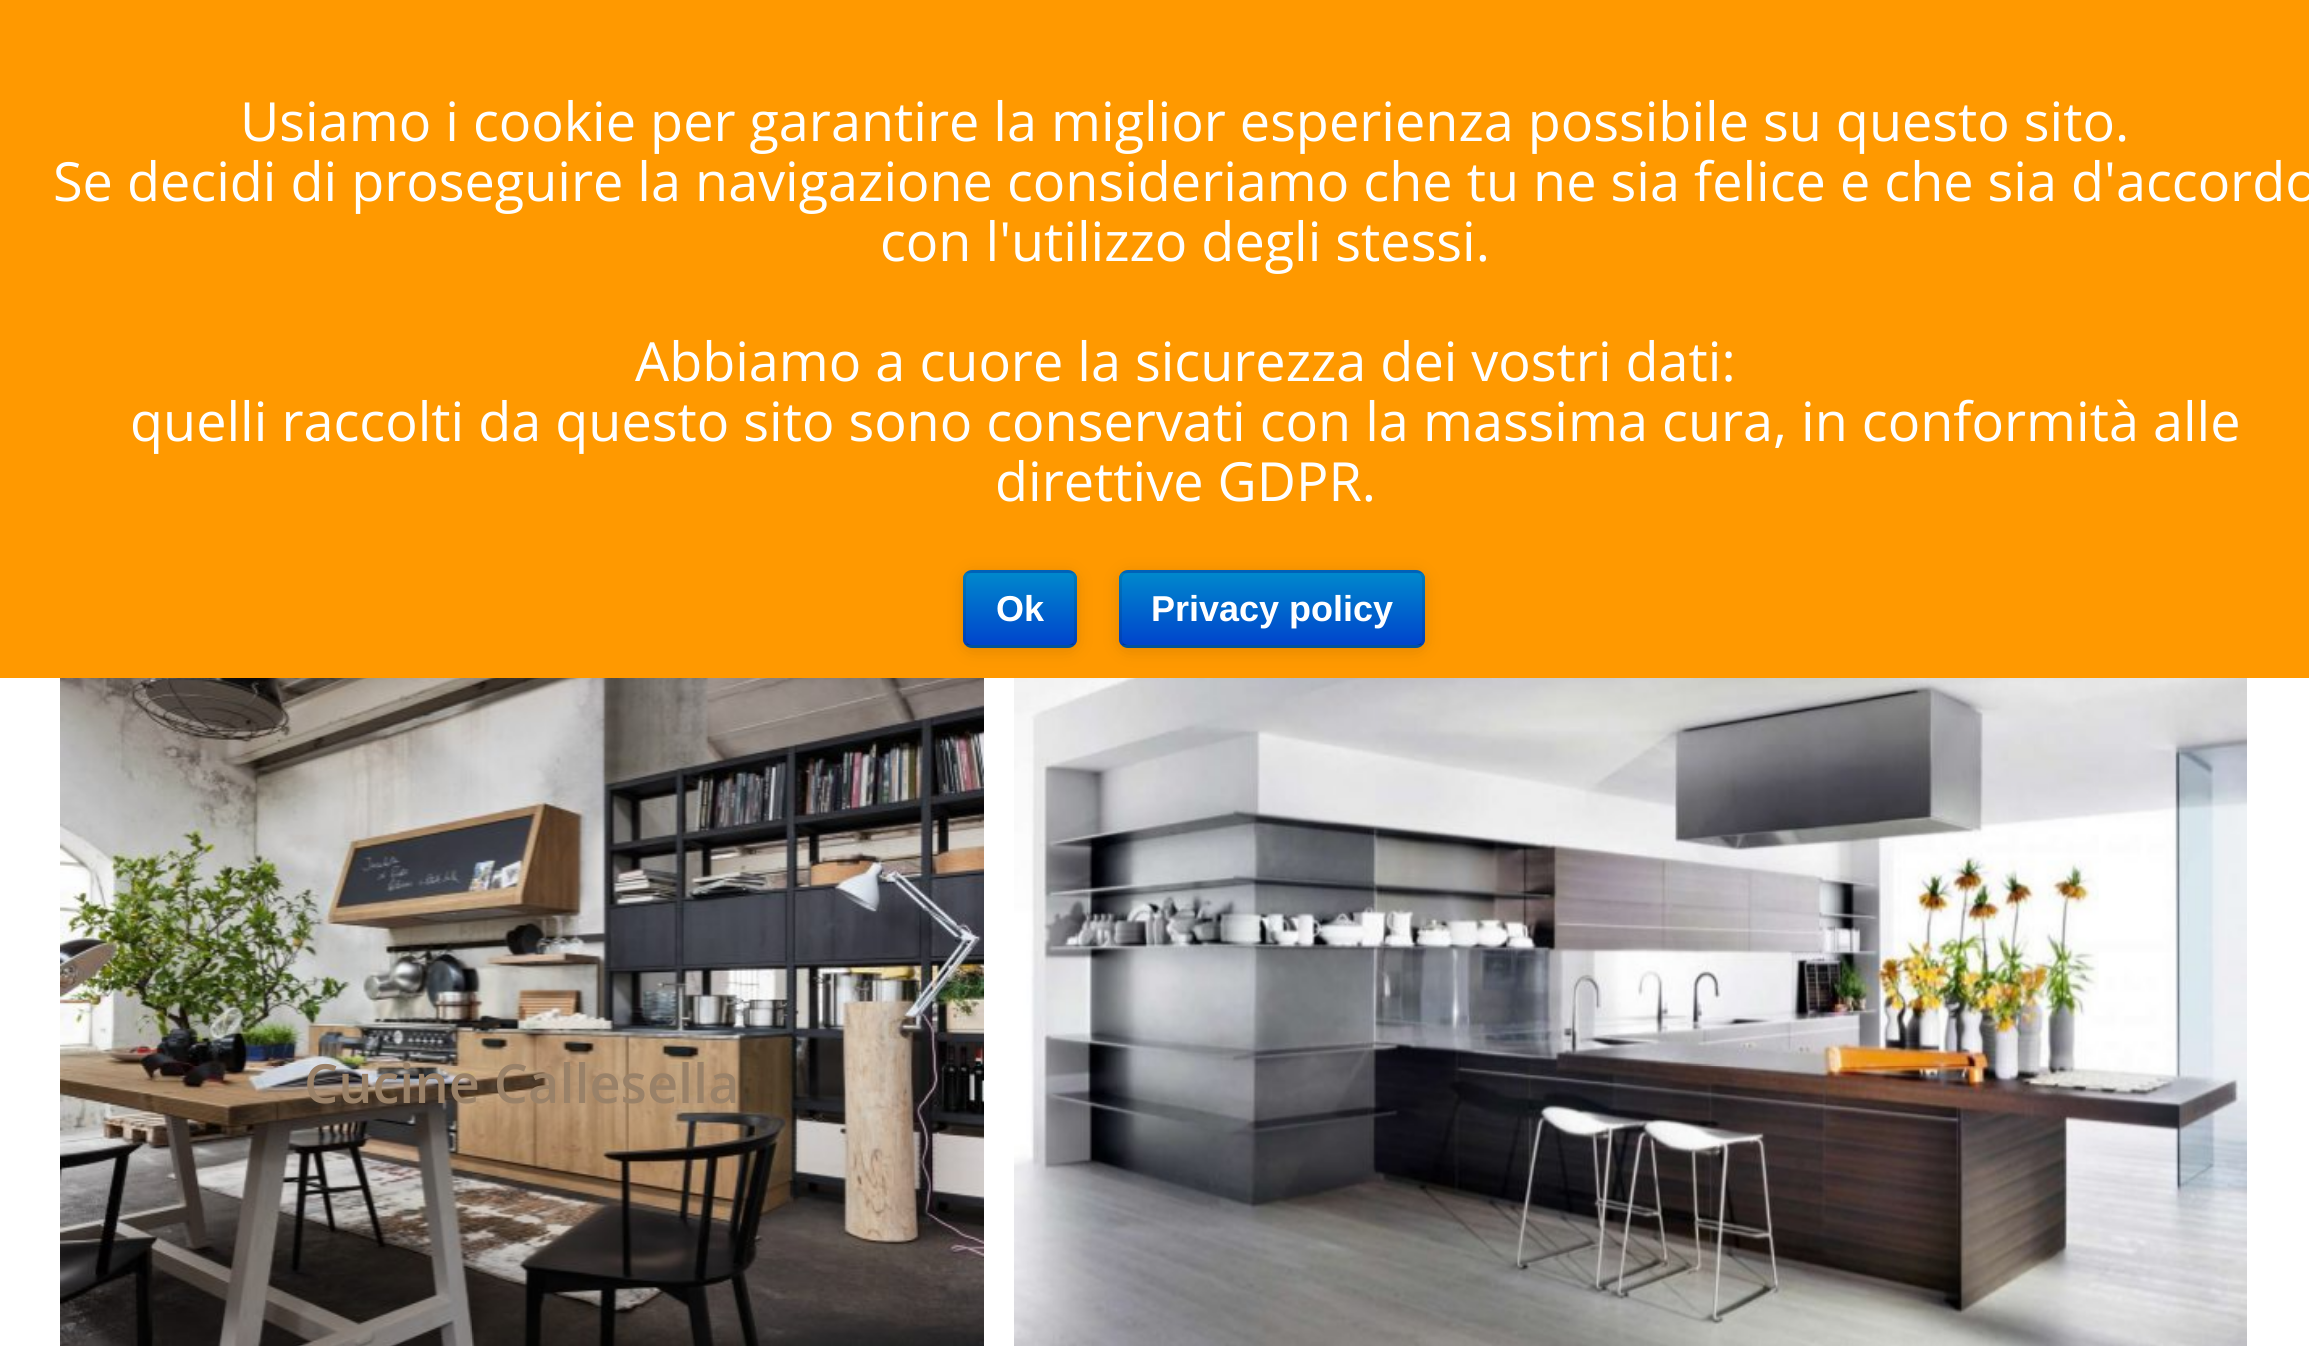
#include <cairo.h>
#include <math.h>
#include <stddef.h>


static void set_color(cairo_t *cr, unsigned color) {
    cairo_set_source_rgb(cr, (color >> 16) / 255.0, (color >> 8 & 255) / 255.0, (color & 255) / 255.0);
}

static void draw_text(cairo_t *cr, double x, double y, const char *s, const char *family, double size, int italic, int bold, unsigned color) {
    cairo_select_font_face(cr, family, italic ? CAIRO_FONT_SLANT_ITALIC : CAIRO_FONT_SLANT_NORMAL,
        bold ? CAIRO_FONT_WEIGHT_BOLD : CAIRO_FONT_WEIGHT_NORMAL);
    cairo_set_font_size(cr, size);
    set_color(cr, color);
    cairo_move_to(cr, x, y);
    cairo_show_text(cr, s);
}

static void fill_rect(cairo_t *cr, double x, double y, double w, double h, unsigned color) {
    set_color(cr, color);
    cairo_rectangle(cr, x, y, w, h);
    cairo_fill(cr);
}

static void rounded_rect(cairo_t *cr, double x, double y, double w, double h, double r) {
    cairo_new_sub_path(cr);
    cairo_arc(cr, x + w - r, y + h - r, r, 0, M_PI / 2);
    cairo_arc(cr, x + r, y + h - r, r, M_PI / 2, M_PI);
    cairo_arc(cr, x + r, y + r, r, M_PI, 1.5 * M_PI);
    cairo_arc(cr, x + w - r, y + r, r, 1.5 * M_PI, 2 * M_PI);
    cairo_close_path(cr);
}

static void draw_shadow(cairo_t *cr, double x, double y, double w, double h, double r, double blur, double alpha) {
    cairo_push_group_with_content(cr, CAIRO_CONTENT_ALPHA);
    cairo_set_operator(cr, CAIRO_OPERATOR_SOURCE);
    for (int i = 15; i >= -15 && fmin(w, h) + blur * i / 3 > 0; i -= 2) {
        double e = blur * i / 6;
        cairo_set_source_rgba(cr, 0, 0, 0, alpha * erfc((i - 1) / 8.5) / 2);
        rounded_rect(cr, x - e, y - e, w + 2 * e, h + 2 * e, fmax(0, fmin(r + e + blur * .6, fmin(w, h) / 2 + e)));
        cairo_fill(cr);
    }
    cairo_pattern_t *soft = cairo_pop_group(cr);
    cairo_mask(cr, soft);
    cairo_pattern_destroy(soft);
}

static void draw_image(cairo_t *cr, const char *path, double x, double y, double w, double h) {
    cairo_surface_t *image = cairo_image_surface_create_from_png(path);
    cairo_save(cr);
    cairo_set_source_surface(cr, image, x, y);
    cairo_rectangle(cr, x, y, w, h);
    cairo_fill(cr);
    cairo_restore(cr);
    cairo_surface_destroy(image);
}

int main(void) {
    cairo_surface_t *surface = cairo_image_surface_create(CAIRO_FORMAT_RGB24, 2309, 1346);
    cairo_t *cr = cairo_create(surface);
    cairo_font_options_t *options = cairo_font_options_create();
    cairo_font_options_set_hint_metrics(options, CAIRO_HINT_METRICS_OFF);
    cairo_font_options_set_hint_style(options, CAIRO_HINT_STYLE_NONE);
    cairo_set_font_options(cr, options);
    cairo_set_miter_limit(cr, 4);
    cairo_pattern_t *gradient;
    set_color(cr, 0xFFFFFF);
    cairo_paint(cr);
    fill_rect(cr, 0, 0, 2309, 678, 0xFF9900);
    draw_text(cr, 240, 141, "Usiamo i cookie per garantire la miglior esperienza possibile su questo sito.", "Open Sans", 54, 0, 0, 0xFFFFFF);
    draw_text(cr, 53, 201, "Se decidi di proseguire la navigazione consideriamo che tu ne sia felice e che sia d'accordo", "Open Sans", 54, 0, 0, 0xFFFFFF);
    draw_text(cr, 880, 261, "con l'utilizzo degli stessi.", "Open Sans", 54, 0, 0, 0xFFFFFF);
    draw_text(cr, 635, 381, "Abbiamo a cuore la sicurezza dei vostri dati:", "Open Sans", 54, 0, 0, 0xFFFFFF);
    draw_text(cr, 130, 441, "quelli raccolti da questo sito sono conservati con la massima cura, in conformità alle", "Open Sans", 54, 0, 0, 0xFFFFFF);
    draw_text(cr, 995, 501, "direttive GDPR.", "Open Sans", 54, 0, 0, 0xFFFFFF);
    draw_image(cr, "assets/img1.png", 60, 678, 924, 668);
    draw_image(cr, "assets/img2.png", 1014, 678, 1233, 668);
    set_color(cr, 0x000000);
    draw_shadow(cr, 963, 573, 114, 78, 9, 9, 0.12);
    set_color(cr, 0x006DCC);
    rounded_rect(cr, 963, 570, 114, 78, 9);
    cairo_fill(cr);
    cairo_save(cr);
    rounded_rect(cr, 963, 570, 114, 78, 9);
    cairo_clip(cr);
    gradient = cairo_pattern_create_linear(1020, 573, 1020, 645);
    cairo_pattern_add_color_stop_rgba(gradient, 0, 0, 0.533, 0.8, 1);
    cairo_pattern_add_color_stop_rgba(gradient, 1, 0, 0.267, 0.8, 1);
    cairo_set_source(cr, gradient);
    cairo_pattern_destroy(gradient);
    cairo_rectangle(cr, 963, 573, 114, 72);
    cairo_fill(cr);
    cairo_restore(cr);
    cairo_new_path(cr);
    cairo_move_to(cr, 1073.5, 644.5);
    cairo_curve_to(cr, 1072, 645.5, 1070, 646.5, 1068, 646.5);
    cairo_line_to(cr, 972, 646.5);
    cairo_curve_to(cr, 970, 646.5, 968, 645.5, 966.5, 644.5);
    cairo_set_source_rgba(cr, 0, 0, 0, 0.25);
    cairo_set_line_width(cr, 3);
    cairo_stroke(cr);
    cairo_new_path(cr);
    cairo_move_to(cr, 966.5, 644.5);
    cairo_curve_to(cr, 965.5, 643, 964.5, 641, 964.5, 639);
    cairo_line_to(cr, 964.5, 579);
    cairo_curve_to(cr, 964.5, 577, 965.5, 575, 966.5, 573.5);
    cairo_curve_to(cr, 968, 572.5, 970, 571.5, 972, 571.5);
    cairo_line_to(cr, 1068, 571.5);
    cairo_curve_to(cr, 1070, 571.5, 1072, 572.5, 1073.5, 573.5);
    cairo_curve_to(cr, 1074.5, 575, 1075.5, 577, 1075.5, 579);
    cairo_line_to(cr, 1075.5, 639);
    cairo_curve_to(cr, 1075.5, 641, 1074.5, 643, 1073.5, 644.5);
    cairo_set_source_rgba(cr, 0, 0, 0, 0.1);
    cairo_stroke(cr);
    draw_text(cr, 996, 621, "Ok", "Liberation Sans", 36, 0, 1, 0xFFFFFF);
    set_color(cr, 0x000000);
    draw_shadow(cr, 1119, 573, 306, 78, 9, 9, 0.12);
    set_color(cr, 0x006DCC);
    rounded_rect(cr, 1119, 570, 306, 78, 9);
    cairo_fill(cr);
    cairo_save(cr);
    rounded_rect(cr, 1119, 570, 306, 78, 9);
    cairo_clip(cr);
    gradient = cairo_pattern_create_linear(1272, 573, 1272, 645);
    cairo_pattern_add_color_stop_rgba(gradient, 0, 0, 0.533, 0.8, 1);
    cairo_pattern_add_color_stop_rgba(gradient, 1, 0, 0.267, 0.8, 1);
    cairo_set_source(cr, gradient);
    cairo_pattern_destroy(gradient);
    cairo_rectangle(cr, 1119, 573, 306, 72);
    cairo_fill(cr);
    cairo_restore(cr);
    cairo_new_path(cr);
    cairo_move_to(cr, 1421.5, 644.5);
    cairo_curve_to(cr, 1420, 645.5, 1418, 646.5, 1416, 646.5);
    cairo_line_to(cr, 1128, 646.5);
    cairo_curve_to(cr, 1126, 646.5, 1124, 645.5, 1122.5, 644.5);
    cairo_set_source_rgba(cr, 0, 0, 0, 0.25);
    cairo_stroke(cr);
    cairo_new_path(cr);
    cairo_move_to(cr, 1122.5, 644.5);
    cairo_curve_to(cr, 1121.5, 643, 1120.5, 641, 1120.5, 639);
    cairo_line_to(cr, 1120.5, 579);
    cairo_curve_to(cr, 1120.5, 577, 1121.5, 575, 1122.5, 573.5);
    cairo_curve_to(cr, 1124, 572.5, 1126, 571.5, 1128, 571.5);
    cairo_line_to(cr, 1416, 571.5);
    cairo_curve_to(cr, 1418, 571.5, 1420, 572.5, 1421.5, 573.5);
    cairo_curve_to(cr, 1422.5, 575, 1423.5, 577, 1423.5, 579);
    cairo_line_to(cr, 1423.5, 639);
    cairo_curve_to(cr, 1423.5, 641, 1422.5, 643, 1421.5, 644.5);
    cairo_set_source_rgba(cr, 0, 0, 0, 0.1);
    cairo_stroke(cr);
    draw_text(cr, 1151, 621, "Privacy policy", "Liberation Sans", 36, 0, 1, 0xFFFFFF);
    draw_text(cr, 304, 1103, "Cucine Callesella", "Open Sans SemiBold", 54, 0, 0, 0x998168);
    cairo_surface_write_to_png(surface, "output.png");
    cairo_font_options_destroy(options);
    cairo_destroy(cr);
    cairo_surface_destroy(surface);
    return 0;
}
